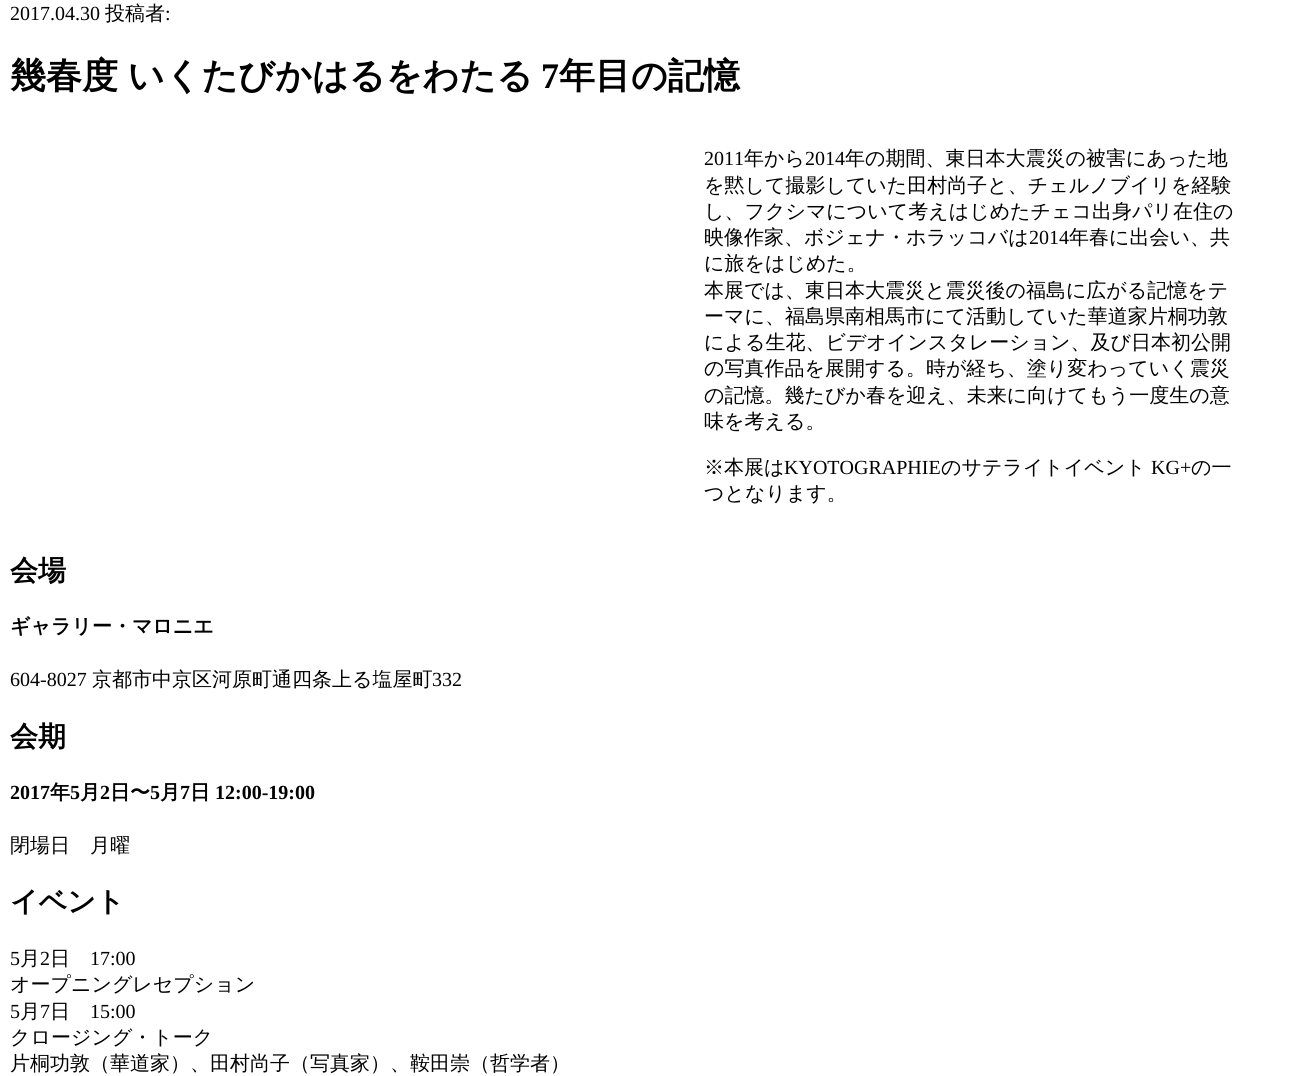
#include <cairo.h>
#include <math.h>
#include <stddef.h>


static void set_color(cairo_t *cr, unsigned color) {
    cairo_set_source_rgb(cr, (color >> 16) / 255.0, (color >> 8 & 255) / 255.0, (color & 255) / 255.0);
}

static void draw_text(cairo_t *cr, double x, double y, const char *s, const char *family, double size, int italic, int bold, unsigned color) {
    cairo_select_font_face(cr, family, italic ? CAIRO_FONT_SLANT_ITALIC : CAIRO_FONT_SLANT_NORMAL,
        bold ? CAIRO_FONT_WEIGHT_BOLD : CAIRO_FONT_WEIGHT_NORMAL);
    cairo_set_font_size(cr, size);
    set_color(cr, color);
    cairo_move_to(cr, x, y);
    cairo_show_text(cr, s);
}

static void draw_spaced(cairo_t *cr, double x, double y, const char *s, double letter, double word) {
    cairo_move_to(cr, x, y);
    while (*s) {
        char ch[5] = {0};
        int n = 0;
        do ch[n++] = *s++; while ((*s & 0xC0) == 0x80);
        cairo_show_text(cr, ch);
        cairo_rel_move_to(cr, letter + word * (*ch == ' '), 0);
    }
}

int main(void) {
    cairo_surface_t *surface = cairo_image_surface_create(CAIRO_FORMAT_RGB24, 1305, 1076);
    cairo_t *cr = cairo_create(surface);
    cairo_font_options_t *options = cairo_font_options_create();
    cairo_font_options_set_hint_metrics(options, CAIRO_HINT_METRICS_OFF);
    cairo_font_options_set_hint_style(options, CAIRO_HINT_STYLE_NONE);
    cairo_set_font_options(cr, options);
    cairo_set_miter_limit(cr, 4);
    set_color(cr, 0xFFFFFF);
    cairo_paint(cr);
    draw_text(cr, 10, 20, "2017.04.30", "Liberation Serif", 20, 0, 0, 0x000000);
    draw_text(cr, 105, 20, "投稿者", "WenQuanYi Zen Hei Medium", 20, 0, 0, 0x000000);
    draw_text(cr, 165, 20, ":", "Liberation Serif", 20, 0, 0, 0x000000);
    cairo_select_font_face(cr, "WenQuanYi Zen Hei", CAIRO_FONT_SLANT_NORMAL, CAIRO_FONT_WEIGHT_BOLD);
    cairo_set_font_size(cr, 36);
    draw_spaced(cr, 10, 88, "幾春度 いくたびかはるをわたる", 0, -1);
    draw_text(cr, 541, 88, "7", "Liberation Serif", 36, 0, 1, 0x000000);
    draw_text(cr, 559, 88, "年目の記憶", "WenQuanYi Zen Hei", 36, 0, 1, 0x000000);
    draw_text(cr, 704, 165, "2011", "Liberation Serif", 20, 0, 0, 0x000000);
    draw_text(cr, 744, 165, "年から", "WenQuanYi Zen Hei Medium", 20, 0, 0, 0x000000);
    draw_text(cr, 805, 165, "2014", "Liberation Serif", 20, 0, 0, 0x000000);
    draw_text(cr, 845, 165, "年の期間、東日本大震災の被害にあった地", "WenQuanYi Zen Hei Medium", 20, 0, 0, 0x000000);
    draw_text(cr, 704, 192, "を黙して撮影していた田村尚子と、チェルノブイリを経験", "WenQuanYi Zen Hei Medium", 20, 0, 0, 0x000000);
    draw_text(cr, 704, 218, "し、フクシマについて考えはじめたチェコ出身パリ在住の", "WenQuanYi Zen Hei Medium", 20, 0, 0, 0x000000);
    draw_text(cr, 704, 244, "映像作家、ボジェナ・ホラッコバは", "WenQuanYi Zen Hei Medium", 20, 0, 0, 0x000000);
    draw_text(cr, 1029, 244, "2014", "Liberation Serif", 20, 0, 0, 0x000000);
    draw_text(cr, 1069, 244, "年春に出会い、共", "WenQuanYi Zen Hei Medium", 20, 0, 0, 0x000000);
    draw_text(cr, 704, 270, "に旅をはじめた。", "WenQuanYi Zen Hei Medium", 20, 0, 0, 0x000000);
    draw_text(cr, 704, 297, "本展では、東日本大震災と震災後の福島に広がる記憶をテ", "WenQuanYi Zen Hei Medium", 20, 0, 0, 0x000000);
    draw_text(cr, 704, 323, "ーマに、福島県南相馬市にて活動していた華道家片桐功敦", "WenQuanYi Zen Hei Medium", 20, 0, 0, 0x000000);
    draw_text(cr, 704, 349, "による生花、ビデオインスタレーション、及び日本初公開", "WenQuanYi Zen Hei Medium", 20, 0, 0, 0x000000);
    draw_text(cr, 704, 375, "の写真作品を展開する。時が経ち、塗り変わっていく震災", "WenQuanYi Zen Hei Medium", 20, 0, 0, 0x000000);
    draw_text(cr, 704, 402, "の記憶。幾たびか春を迎え、未来に向けてもう一度生の意", "WenQuanYi Zen Hei Medium", 20, 0, 0, 0x000000);
    draw_text(cr, 704, 428, "味を考える。", "WenQuanYi Zen Hei Medium", 20, 0, 0, 0x000000);
    draw_text(cr, 704, 474, "※本展は", "WenQuanYi Zen Hei Medium", 20, 0, 0, 0x000000);
    draw_text(cr, 784, 474, "KYOTOGRAPHIE", "Liberation Serif", 20, 0, 0, 0x000000);
    draw_text(cr, 941, 474, "のサテライトイベント", "WenQuanYi Zen Hei Medium", 20, 0, 0, 0x000000);
    draw_text(cr, 1151, 474, "KG+", "Liberation Serif", 20, 0, 0, 0x000000);
    draw_text(cr, 1191, 474, "の一", "WenQuanYi Zen Hei Medium", 20, 0, 0, 0x000000);
    draw_text(cr, 704, 500, "つとなります。", "WenQuanYi Zen Hei Medium", 20, 0, 0, 0x000000);
    draw_text(cr, 10, 580, "会場", "WenQuanYi Zen Hei", 28, 0, 1, 0x000000);
    draw_text(cr, 10, 633, "ギャラリー・マロニエ", "WenQuanYi Zen Hei", 20, 0, 1, 0x000000);
    draw_text(cr, 10, 686, "604-8027", "Liberation Serif", 20, 0, 0, 0x000000);
    draw_text(cr, 92, 686, "京都市中京区河原町通四条上る塩屋町", "WenQuanYi Zen Hei Medium", 20, 0, 0, 0x000000);
    draw_text(cr, 432, 686, "332", "Liberation Serif", 20, 0, 0, 0x000000);
    draw_text(cr, 10, 746, "会期", "WenQuanYi Zen Hei", 28, 0, 1, 0x000000);
    draw_text(cr, 10, 799, "2017", "Liberation Serif", 20, 0, 1, 0x000000);
    draw_text(cr, 50, 799, "年", "WenQuanYi Zen Hei", 20, 0, 1, 0x000000);
    draw_text(cr, 70, 799, "5", "Liberation Serif", 20, 0, 1, 0x000000);
    draw_text(cr, 80, 799, "月", "WenQuanYi Zen Hei", 20, 0, 1, 0x000000);
    draw_text(cr, 100, 799, "2", "Liberation Serif", 20, 0, 1, 0x000000);
    draw_text(cr, 110, 799, "日〜", "WenQuanYi Zen Hei", 20, 0, 1, 0x000000);
    draw_text(cr, 150, 799, "5", "Liberation Serif", 20, 0, 1, 0x000000);
    draw_text(cr, 160, 799, "月", "WenQuanYi Zen Hei", 20, 0, 1, 0x000000);
    draw_text(cr, 180, 799, "7", "Liberation Serif", 20, 0, 1, 0x000000);
    draw_text(cr, 190, 799, "日", "WenQuanYi Zen Hei", 20, 0, 1, 0x000000);
    draw_text(cr, 215, 799, "12:00-19:00", "Liberation Serif", 20, 0, 1, 0x000000);
    draw_text(cr, 10, 852, "閉場日　月曜", "WenQuanYi Zen Hei Medium", 20, 0, 0, 0x000000);
    draw_text(cr, 10, 911, "イベント", "WenQuanYi Zen Hei", 28, 0, 1, 0x000000);
    draw_text(cr, 10, 965, "5", "Liberation Serif", 20, 0, 0, 0x000000);
    draw_text(cr, 20, 965, "月", "WenQuanYi Zen Hei Medium", 20, 0, 0, 0x000000);
    draw_text(cr, 40, 965, "2", "Liberation Serif", 20, 0, 0, 0x000000);
    draw_text(cr, 50, 965, "日", "WenQuanYi Zen Hei Medium", 20, 0, 0, 0x000000);
    draw_text(cr, 90, 965, "17:00", "Liberation Serif", 20, 0, 0, 0x000000);
    draw_text(cr, 10, 991, "オープニングレセプション", "WenQuanYi Zen Hei Medium", 20, 0, 0, 0x000000);
    draw_text(cr, 10, 1018, "5", "Liberation Serif", 20, 0, 0, 0x000000);
    draw_text(cr, 20, 1018, "月", "WenQuanYi Zen Hei Medium", 20, 0, 0, 0x000000);
    draw_text(cr, 40, 1018, "7", "Liberation Serif", 20, 0, 0, 0x000000);
    draw_text(cr, 50, 1018, "日", "WenQuanYi Zen Hei Medium", 20, 0, 0, 0x000000);
    draw_text(cr, 90, 1018, "15:00", "Liberation Serif", 20, 0, 0, 0x000000);
    draw_text(cr, 10, 1044, "クロージング・トーク", "WenQuanYi Zen Hei Medium", 20, 0, 0, 0x000000);
    draw_text(cr, 10, 1070, "片桐功敦（華道家）、田村尚子（写真家）、鞍田崇（哲学者）", "WenQuanYi Zen Hei Medium", 20, 0, 0, 0x000000);
    cairo_surface_write_to_png(surface, "output.png");
    cairo_font_options_destroy(options);
    cairo_destroy(cr);
    cairo_surface_destroy(surface);
    return 0;
}
